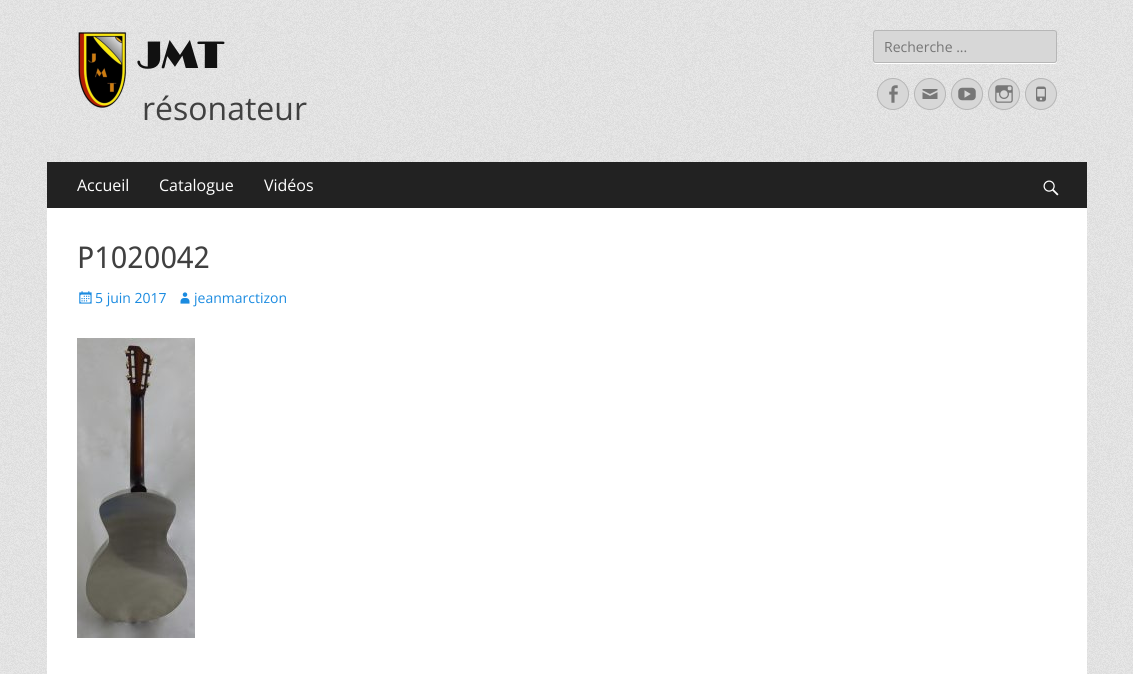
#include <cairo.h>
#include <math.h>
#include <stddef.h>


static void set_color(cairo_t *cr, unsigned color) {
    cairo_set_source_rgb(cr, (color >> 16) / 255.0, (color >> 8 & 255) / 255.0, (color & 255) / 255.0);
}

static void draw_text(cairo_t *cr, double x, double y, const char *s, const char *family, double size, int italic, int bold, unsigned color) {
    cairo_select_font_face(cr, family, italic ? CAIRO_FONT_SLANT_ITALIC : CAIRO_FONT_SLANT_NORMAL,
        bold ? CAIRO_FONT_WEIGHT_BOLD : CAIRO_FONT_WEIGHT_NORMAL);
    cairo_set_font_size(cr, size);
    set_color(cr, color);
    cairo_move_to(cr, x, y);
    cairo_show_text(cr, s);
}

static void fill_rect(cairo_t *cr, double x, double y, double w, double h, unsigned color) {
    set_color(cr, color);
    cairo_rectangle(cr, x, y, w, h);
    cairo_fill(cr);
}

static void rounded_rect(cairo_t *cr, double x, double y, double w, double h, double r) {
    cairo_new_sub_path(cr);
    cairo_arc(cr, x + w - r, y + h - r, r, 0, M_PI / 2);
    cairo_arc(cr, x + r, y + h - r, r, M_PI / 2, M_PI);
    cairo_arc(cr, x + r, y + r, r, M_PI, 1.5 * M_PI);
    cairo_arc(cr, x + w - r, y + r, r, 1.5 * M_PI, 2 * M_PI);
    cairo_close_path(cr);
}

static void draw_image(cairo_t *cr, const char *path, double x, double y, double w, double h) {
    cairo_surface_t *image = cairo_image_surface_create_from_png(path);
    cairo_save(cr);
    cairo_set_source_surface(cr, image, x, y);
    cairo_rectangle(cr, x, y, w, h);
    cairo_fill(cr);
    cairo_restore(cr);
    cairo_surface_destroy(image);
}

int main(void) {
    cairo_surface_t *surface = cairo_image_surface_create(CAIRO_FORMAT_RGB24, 1133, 674);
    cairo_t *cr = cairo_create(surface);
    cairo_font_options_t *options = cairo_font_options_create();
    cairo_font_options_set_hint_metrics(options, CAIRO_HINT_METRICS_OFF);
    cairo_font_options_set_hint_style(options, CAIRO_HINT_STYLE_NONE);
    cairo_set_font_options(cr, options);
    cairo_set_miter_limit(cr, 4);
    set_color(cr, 0xFFFFFF);
    cairo_paint(cr);
    draw_image(cr, "assets/img1.png", 0, 0, 1133, 674);
    draw_image(cr, "assets/img2.png", 78, 32, 49, 76);
    draw_text(cr, 137, 68, "JMT", "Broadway", 38, 0, 1, 0x111111);
    draw_text(cr, 142, 120, "résonateur", "Open Sans", 32, 0, 0, 0x404040);
    set_color(cr, 0xFFFFFF);
    cairo_new_path(cr);
    cairo_move_to(cr, 873, 60);
    cairo_curve_to(cr, 873, 62, 874, 64, 876, 64);
    cairo_line_to(cr, 1055, 64);
    cairo_curve_to(cr, 1057, 63, 1057, 62, 1057, 60);
    cairo_curve_to(cr, 1057, 62, 1056, 63, 1054, 63);
    cairo_line_to(cr, 876, 63);
    cairo_curve_to(cr, 874, 63, 873, 62, 873, 60);
    cairo_close_path(cr);
    cairo_fill(cr);
    set_color(cr, 0xD7D7D7);
    rounded_rect(cr, 873.5, 30.5, 183, 32, 2.5);
    cairo_fill_preserve(cr);
    set_color(cr, 0xB6B6B6);
    cairo_set_line_width(cr, 1);
    cairo_stroke(cr);
    draw_text(cr, 884, 52, "Recherche ...", "Open Sans", 14, 0, 0, 0x757575);
    set_color(cr, 0xD7D7D7);
    cairo_new_path(cr);
    cairo_arc(cr, 893, 94, 15.5, 0, 2 * M_PI);
    cairo_fill_preserve(cr);
    set_color(cr, 0xB6B6B6);
    cairo_stroke(cr);
    draw_image(cr, "assets/img3.png", 889, 85, 9, 18);
    set_color(cr, 0xD7D7D7);
    cairo_arc(cr, 930, 94, 15.5, 0, 2 * M_PI);
    cairo_fill_preserve(cr);
    set_color(cr, 0xB6B6B6);
    cairo_stroke(cr);
    draw_image(cr, "assets/img4.png", 922, 89, 16, 10);
    set_color(cr, 0xD7D7D7);
    cairo_arc(cr, 967, 94, 15.5, 0, 2 * M_PI);
    cairo_fill_preserve(cr);
    set_color(cr, 0xB6B6B6);
    cairo_stroke(cr);
    draw_image(cr, "assets/img5.png", 958, 87, 18, 14);
    set_color(cr, 0xD7D7D7);
    cairo_arc(cr, 1004, 94, 15.5, 0, 2 * M_PI);
    cairo_fill_preserve(cr);
    set_color(cr, 0xB6B6B6);
    cairo_stroke(cr);
    draw_image(cr, "assets/img6.png", 995, 85, 18, 18);
    set_color(cr, 0xD7D7D7);
    cairo_arc(cr, 1041, 94, 15.5, 0, 2 * M_PI);
    cairo_fill_preserve(cr);
    set_color(cr, 0xB6B6B6);
    cairo_stroke(cr);
    draw_image(cr, "assets/img7.png", 1036, 86, 10, 16);
    fill_rect(cr, 47, 162, 1040, 46, 0x222222);
    draw_text(cr, 77, 191, "Accueil", "Open Sans", 16, 0, 0, 0xFFFFFF);
    draw_text(cr, 159, 191, "Catalogue", "Open Sans", 16, 0, 0, 0xFFFFFF);
    draw_text(cr, 264, 191, "Vidéos", "Open Sans", 16, 0, 0, 0xFFFFFF);
    draw_image(cr, "assets/img8.png", 1043, 180, 16, 16);
    fill_rect(cr, 47, 208, 1040, 466, 0xFFFFFF);
    draw_text(cr, 77, 268, "P1020042", "Droid Sans", 30, 0, 0, 0x404040);
    draw_image(cr, "assets/img9.png", 79, 291, 13, 13);
    draw_text(cr, 95, 303, "5 juin 2017", "Open Sans", 14, 0, 0, 0x1B8BE0);
    draw_image(cr, "assets/img10.png", 180, 292, 10, 12);
    draw_text(cr, 194, 303, "jeanmarctizon", "Open Sans", 14, 0, 0, 0x1B8BE0);
    draw_image(cr, "assets/img11.png", 77, 338, 118, 300);
    cairo_surface_write_to_png(surface, "output.png");
    cairo_font_options_destroy(options);
    cairo_destroy(cr);
    cairo_surface_destroy(surface);
    return 0;
}
